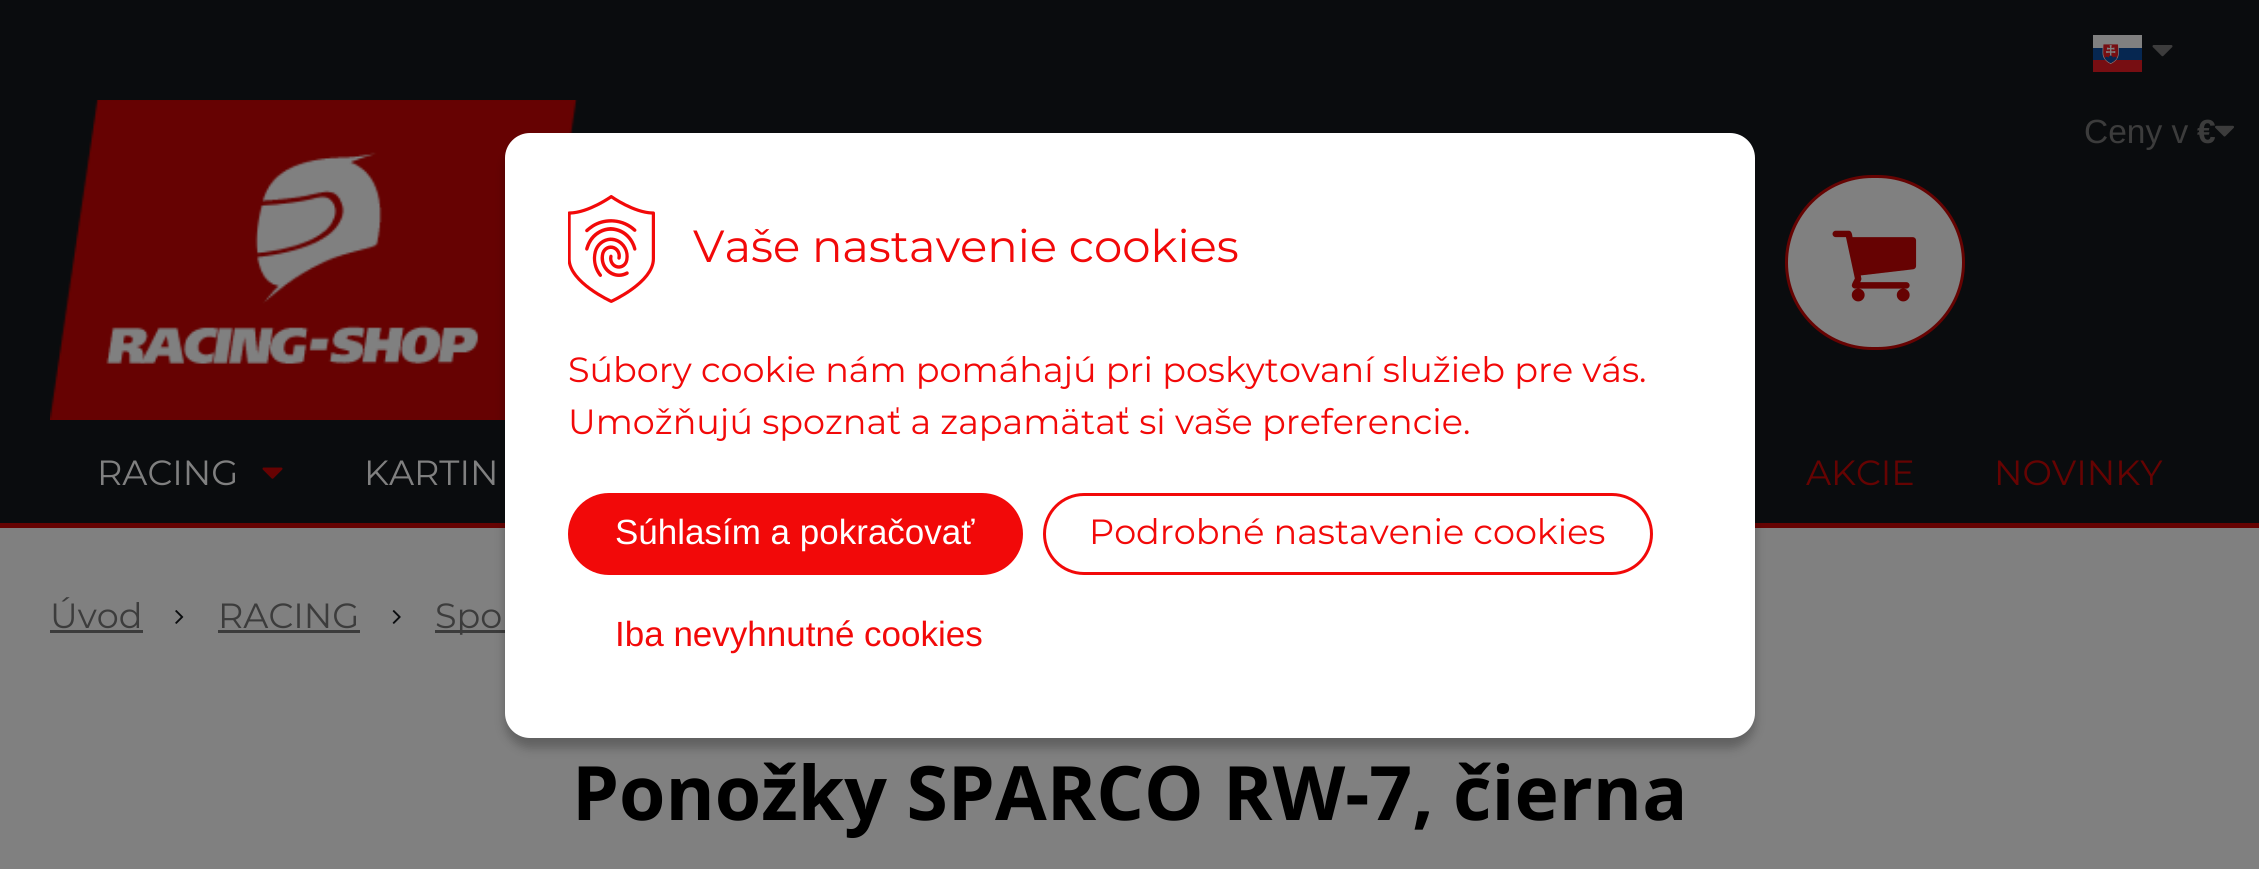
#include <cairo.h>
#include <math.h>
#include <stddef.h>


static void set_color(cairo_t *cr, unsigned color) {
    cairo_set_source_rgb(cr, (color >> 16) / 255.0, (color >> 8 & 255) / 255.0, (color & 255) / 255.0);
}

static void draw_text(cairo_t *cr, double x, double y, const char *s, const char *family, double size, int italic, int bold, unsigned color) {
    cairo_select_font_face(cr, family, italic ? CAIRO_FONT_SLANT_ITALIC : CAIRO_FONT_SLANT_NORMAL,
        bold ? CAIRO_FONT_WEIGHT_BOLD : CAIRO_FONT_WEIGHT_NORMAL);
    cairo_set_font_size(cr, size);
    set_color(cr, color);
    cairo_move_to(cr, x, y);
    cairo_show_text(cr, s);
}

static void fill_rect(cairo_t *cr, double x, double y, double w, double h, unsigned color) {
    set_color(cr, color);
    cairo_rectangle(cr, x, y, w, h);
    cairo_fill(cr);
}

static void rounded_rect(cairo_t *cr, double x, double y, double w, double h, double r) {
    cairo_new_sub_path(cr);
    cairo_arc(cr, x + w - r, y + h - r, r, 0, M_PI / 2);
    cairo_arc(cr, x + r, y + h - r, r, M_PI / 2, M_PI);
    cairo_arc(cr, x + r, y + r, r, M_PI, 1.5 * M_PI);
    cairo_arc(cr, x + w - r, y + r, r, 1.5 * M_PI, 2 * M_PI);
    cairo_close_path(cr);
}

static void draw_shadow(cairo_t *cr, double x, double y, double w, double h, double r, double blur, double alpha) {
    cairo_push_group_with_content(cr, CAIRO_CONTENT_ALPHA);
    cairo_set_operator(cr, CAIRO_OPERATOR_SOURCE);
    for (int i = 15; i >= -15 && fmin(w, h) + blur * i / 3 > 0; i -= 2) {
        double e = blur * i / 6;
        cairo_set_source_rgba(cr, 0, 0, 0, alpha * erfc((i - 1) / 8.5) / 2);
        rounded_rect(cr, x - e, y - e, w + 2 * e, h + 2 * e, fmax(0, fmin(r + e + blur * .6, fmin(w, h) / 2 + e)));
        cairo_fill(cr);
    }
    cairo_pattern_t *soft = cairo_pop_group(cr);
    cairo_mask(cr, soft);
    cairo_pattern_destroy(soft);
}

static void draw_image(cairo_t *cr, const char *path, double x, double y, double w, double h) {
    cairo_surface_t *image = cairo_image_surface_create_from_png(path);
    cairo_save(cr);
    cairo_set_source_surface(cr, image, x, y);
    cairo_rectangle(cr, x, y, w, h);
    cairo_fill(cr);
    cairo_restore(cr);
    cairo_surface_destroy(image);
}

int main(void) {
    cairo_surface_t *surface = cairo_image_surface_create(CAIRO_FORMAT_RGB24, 2259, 869);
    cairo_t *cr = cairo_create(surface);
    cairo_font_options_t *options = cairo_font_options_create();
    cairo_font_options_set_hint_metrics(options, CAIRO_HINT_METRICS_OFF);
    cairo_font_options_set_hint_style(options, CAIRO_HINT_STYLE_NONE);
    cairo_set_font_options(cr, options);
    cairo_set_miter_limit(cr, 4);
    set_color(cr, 0x808080);
    cairo_paint(cr);
    fill_rect(cr, 0, 0, 2259, 523, 0x0A0C0E);
    draw_image(cr, "assets/img1.png", 2093, 35, 49, 37);
    draw_image(cr, "assets/img2.png", 2152, 45, 21, 12);
    draw_image(cr, "assets/img3.png", 50, 100, 528, 320);
    draw_text(cr, 2084, 143, "Ceny v", "Liberation Sans", 33.5, 0, 0, 0x3C3C3C);
    draw_text(cr, 2197, 143, "€", "Liberation Sans", 33.5, 0, 1, 0x3C3C3C);
    draw_image(cr, "assets/img4.png", 2215, 125, 19, 12);
    set_color(cr, 0x808080);
    rounded_rect(cr, 1786.5, 176.5, 177, 172, 86);
    cairo_fill_preserve(cr);
    set_color(cr, 0x660302);
    cairo_set_line_width(cr, 3);
    cairo_stroke(cr);
    draw_image(cr, "assets/img5.png", 1832, 230, 85, 72);
    fill_rect(cr, 0, 523, 2259, 5, 0x660302);
    draw_text(cr, 97, 485, "RACING", "Montserrat", 35, 0, 0, 0x808080);
    draw_image(cr, "assets/img6.png", 262, 467, 21, 12);
    draw_text(cr, 364, 485, "KARTIN", "Montserrat", 35, 0, 0, 0x808080);
    draw_text(cr, 1806, 485, "AKCIE", "Montserrat", 35, 0, 0, 0x660302);
    draw_text(cr, 1994, 485, "NOVINKY", "Montserrat", 35, 0, 0, 0x660302);
    draw_text(cr, 50, 628, "Úvod", "Montserrat", 35, 0, 0, 0x3C3C3C);
    fill_rect(cr, 50, 630, 93, 3, 0x3C3C3C);
    draw_image(cr, "assets/img7.png", 175, 610, 9, 14);
    draw_text(cr, 218, 628, "RACING", "Montserrat", 35, 0, 0, 0x3C3C3C);
    fill_rect(cr, 218, 630, 142, 3, 0x3C3C3C);
    draw_image(cr, "assets/img8.png", 392, 610, 9, 14);
    fill_rect(cr, 435, 630, 70, 3, 0x3C3C3C);
    draw_text(cr, 435, 628, "Spo", "Montserrat", 35, 0, 0, 0x3C3C3C);
    draw_text(cr, 572, 820, "Ponožky SPARCO RW-7, čierna", "Open Sans", 75, 0, 1, 0x000000);
    set_color(cr, 0x000000);
    draw_shadow(cr, 505, 143, 1250, 605, 25, 5, 0.25);
    set_color(cr, 0xFFFFFF);
    rounded_rect(cr, 505, 133, 1250, 605, 25);
    cairo_fill(cr);
    draw_image(cr, "assets/img9.png", 568, 195, 87, 108);
    draw_text(cr, 693, 262, "Vaše nastavenie cookies", "Montserrat", 45, 0, 0, 0xF20909);
    draw_text(cr, 568, 382, "Súbory cookie nám pomáhajú pri poskytovaní služieb pre vás.", "Montserrat", 35, 0, 0, 0xF20909);
    draw_text(cr, 568, 434, "Umožňujú spoznať a zapamätať si vaše preferencie.", "Montserrat", 35, 0, 0, 0xF20909);
    rounded_rect(cr, 569.5, 494.5, 452, 79, 39.5);
    cairo_fill_preserve(cr);
    cairo_stroke(cr);
    draw_text(cr, 615, 544, "Súhlasím a pokračovať", "Liberation Sans", 35, 0, 0, 0xFFFFFF);
    rounded_rect(cr, 1044.5, 494.5, 607, 79, 39.5);
    set_color(cr, 0xF20909);
    cairo_stroke(cr);
    draw_text(cr, 1089, 544, "Podrobné nastavenie cookies", "Montserrat", 35, 0, 0, 0xF20909);
    draw_text(cr, 615, 646, "Iba nevyhnutné cookies", "Liberation Sans", 35, 0, 0, 0xF20909);
    cairo_surface_write_to_png(surface, "output.png");
    cairo_font_options_destroy(options);
    cairo_destroy(cr);
    cairo_surface_destroy(surface);
    return 0;
}
